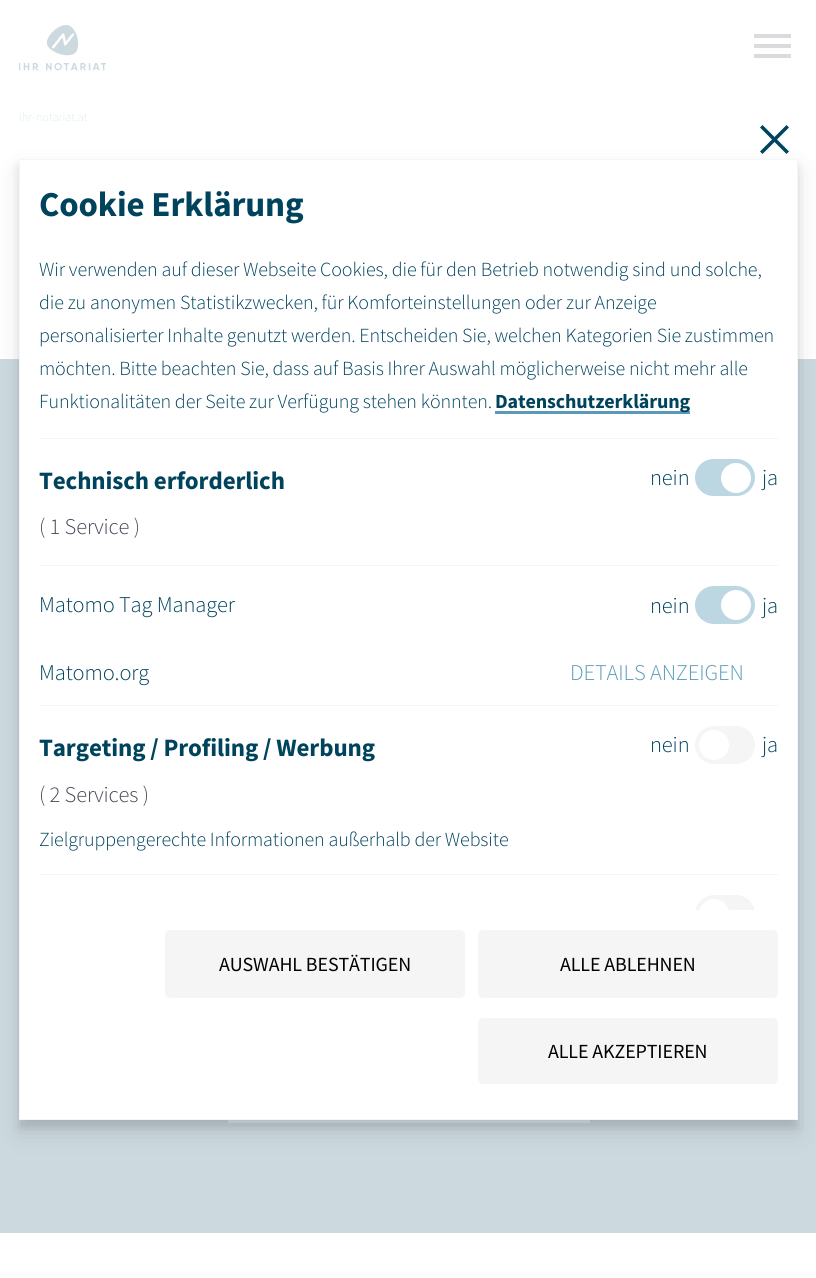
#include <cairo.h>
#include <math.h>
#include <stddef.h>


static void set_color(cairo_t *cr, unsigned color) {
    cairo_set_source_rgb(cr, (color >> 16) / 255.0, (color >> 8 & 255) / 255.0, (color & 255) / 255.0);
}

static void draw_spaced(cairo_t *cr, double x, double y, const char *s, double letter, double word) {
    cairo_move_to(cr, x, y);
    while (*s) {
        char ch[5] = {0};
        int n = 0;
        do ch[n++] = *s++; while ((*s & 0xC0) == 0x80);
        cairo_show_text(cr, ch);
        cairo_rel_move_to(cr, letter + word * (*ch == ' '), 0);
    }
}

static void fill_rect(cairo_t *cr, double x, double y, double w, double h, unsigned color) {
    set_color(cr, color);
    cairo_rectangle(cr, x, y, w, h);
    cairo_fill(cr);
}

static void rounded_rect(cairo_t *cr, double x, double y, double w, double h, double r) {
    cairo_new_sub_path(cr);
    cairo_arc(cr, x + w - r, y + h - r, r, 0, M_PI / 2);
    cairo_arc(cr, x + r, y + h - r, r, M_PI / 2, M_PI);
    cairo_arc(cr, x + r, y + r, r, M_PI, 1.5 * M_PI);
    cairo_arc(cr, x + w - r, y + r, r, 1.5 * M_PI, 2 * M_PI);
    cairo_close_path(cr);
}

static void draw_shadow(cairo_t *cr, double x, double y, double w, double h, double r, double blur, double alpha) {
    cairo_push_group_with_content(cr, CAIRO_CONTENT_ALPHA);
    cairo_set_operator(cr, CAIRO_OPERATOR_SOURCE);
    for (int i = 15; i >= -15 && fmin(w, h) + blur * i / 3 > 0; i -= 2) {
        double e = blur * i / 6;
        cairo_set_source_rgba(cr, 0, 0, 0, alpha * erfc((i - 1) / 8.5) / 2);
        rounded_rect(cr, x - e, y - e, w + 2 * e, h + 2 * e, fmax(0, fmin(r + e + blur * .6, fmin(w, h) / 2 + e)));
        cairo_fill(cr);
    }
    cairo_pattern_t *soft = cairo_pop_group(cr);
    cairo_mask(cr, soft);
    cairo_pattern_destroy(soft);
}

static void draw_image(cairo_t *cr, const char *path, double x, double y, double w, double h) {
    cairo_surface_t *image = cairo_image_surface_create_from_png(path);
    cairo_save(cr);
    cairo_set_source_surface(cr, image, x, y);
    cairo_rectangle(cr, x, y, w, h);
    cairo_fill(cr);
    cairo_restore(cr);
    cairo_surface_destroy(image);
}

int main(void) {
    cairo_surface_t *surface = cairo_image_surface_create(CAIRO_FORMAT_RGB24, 816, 1278);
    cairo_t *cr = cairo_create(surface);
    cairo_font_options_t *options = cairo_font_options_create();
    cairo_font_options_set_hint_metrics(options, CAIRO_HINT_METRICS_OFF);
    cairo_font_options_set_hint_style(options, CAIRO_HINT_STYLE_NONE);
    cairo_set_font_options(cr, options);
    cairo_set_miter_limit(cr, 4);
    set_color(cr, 0xFFFFFF);
    cairo_paint(cr);
    draw_image(cr, "assets/img1.png", 19, 25, 87, 46);
    fill_rect(cr, 754, 34, 37, 4, 0xDBDADD);
    fill_rect(cr, 754, 44, 37, 4, 0xDBDADD);
    fill_rect(cr, 754, 54, 37, 4, 0xDBDADD);
    cairo_select_font_face(cr, "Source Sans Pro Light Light", CAIRO_FONT_SLANT_NORMAL, CAIRO_FONT_WEIGHT_NORMAL);
    cairo_set_font_size(cr, 12.5);
    set_color(cr, 0xDEEBF1);
    draw_spaced(cr, 19, 121, "ihr-notariat.at", -0.12, 0);
    fill_rect(cr, 0, 359, 816, 874, 0xCCD9DF);
    fill_rect(cr, 228, 1120, 362, 3, 0xDEEBF1);
    set_color(cr, 0x000000);
    draw_shadow(cr, 19, 166, 779, 962, 0, 4, 0.1);
    draw_shadow(cr, 19, 171, 779, 962, 0, 12.5, 0.1);
    set_color(cr, 0xFFFFFF);
    cairo_rectangle(cr, 19.5, 159.5, 778, 960);
    cairo_fill_preserve(cr);
    set_color(cr, 0xF5F5F5);
    cairo_set_line_width(cr, 1);
    cairo_stroke(cr);
    set_color(cr, 0x00435D);
    cairo_new_path(cr);
    cairo_move_to(cr, 786.5, 125);
    cairo_line_to(cr, 789, 127.5);
    cairo_line_to(cr, 762.5, 154);
    cairo_line_to(cr, 760, 151.5);
    cairo_close_path(cr);
    cairo_fill(cr);
    cairo_new_path(cr);
    cairo_move_to(cr, 760, 127.5);
    cairo_line_to(cr, 762.5, 125);
    cairo_line_to(cr, 789, 151.5);
    cairo_line_to(cr, 786.5, 154);
    cairo_close_path(cr);
    cairo_fill(cr);
    cairo_select_font_face(cr, "Source Sans Pro", CAIRO_FONT_SLANT_NORMAL, CAIRO_FONT_WEIGHT_BOLD);
    cairo_set_font_size(cr, 35);
    draw_spaced(cr, 39, 216, "Cookie Erklärung", -0.12, 0);
    cairo_select_font_face(cr, "Source Sans Pro Light Light", CAIRO_FONT_SLANT_NORMAL, CAIRO_FONT_WEIGHT_NORMAL);
    cairo_set_font_size(cr, 20);
    draw_spaced(cr, 39, 276, "Wir verwenden auf dieser Webseite Cookies, die für den Betrieb notwendig sind und solche,", -0.12, 0);
    draw_spaced(cr, 39, 309, "die zu anonymen Statistikzwecken, für Komforteinstellungen oder zur Anzeige", -0.12, 0);
    draw_spaced(cr, 39, 342, "personalisierter Inhalte genutzt werden. Entscheiden Sie, welchen Kategorien Sie zustimmen", -0.12, 0);
    draw_spaced(cr, 39, 375, "möchten. Bitte beachten Sie, dass auf Basis Ihrer Auswahl möglicherweise nicht mehr alle", -0.12, 0);
    draw_spaced(cr, 39, 408, "Funktionalitäten der Seite zur Verfügung stehen könnten.", -0.12, 0);
    fill_rect(cr, 495, 411, 195, 3, 0x599BB7);
    cairo_select_font_face(cr, "Source Sans Pro", CAIRO_FONT_SLANT_NORMAL, CAIRO_FONT_WEIGHT_BOLD);
    set_color(cr, 0x00435D);
    draw_spaced(cr, 495, 408, "Datenschutzerklärung", -0.12, 0);
    fill_rect(cr, 39, 438, 739, 1, 0xF5F5F5);
    fill_rect(cr, 39, 705, 739, 1, 0xF5F5F5);
    cairo_set_font_size(cr, 25);
    set_color(cr, 0x00435D);
    draw_spaced(cr, 39, 489, "Technisch erforderlich", -0.12, 0);
    cairo_select_font_face(cr, "Source Sans Pro Light Light", CAIRO_FONT_SLANT_NORMAL, CAIRO_FONT_WEIGHT_NORMAL);
    cairo_set_font_size(cr, 22.5);
    set_color(cr, 0x4C4555);
    draw_spaced(cr, 39, 534, "( 1 Service )", -0.12, 0);
    set_color(cr, 0x00435D);
    draw_spaced(cr, 650, 485, "nein", -0.12, 0);
    set_color(cr, 0xBDD7E2);
    rounded_rect(cr, 695, 459, 60, 37, 18.5);
    cairo_fill(cr);
    set_color(cr, 0xFFFFFF);
    cairo_arc(cr, 736, 478, 15, 0, 2 * M_PI);
    cairo_fill(cr);
    set_color(cr, 0x00435D);
    draw_spaced(cr, 762, 485, "ja", -0.12, 0);
    fill_rect(cr, 39, 565, 739, 1, 0xF5F5F5);
    set_color(cr, 0x00435D);
    draw_spaced(cr, 39, 612, "Matomo Tag Manager", -0.12, 0);
    draw_spaced(cr, 650, 613, "nein", -0.12, 0);
    set_color(cr, 0xBDD7E2);
    rounded_rect(cr, 695, 586, 60, 38, 19);
    cairo_fill(cr);
    set_color(cr, 0xFFFFFF);
    cairo_arc(cr, 736, 605, 15, 0, 2 * M_PI);
    cairo_fill(cr);
    set_color(cr, 0x00435D);
    draw_spaced(cr, 762, 613, "ja", -0.12, 0);
    draw_spaced(cr, 39, 680, "Matomo.org", -0.12, 0);
    set_color(cr, 0x599BB7);
    draw_spaced(cr, 570, 680, "DETAILS ANZEIGEN", -0.12, 0);
    cairo_select_font_face(cr, "Source Sans Pro", CAIRO_FONT_SLANT_NORMAL, CAIRO_FONT_WEIGHT_BOLD);
    cairo_set_font_size(cr, 25);
    set_color(cr, 0x00435D);
    draw_spaced(cr, 39, 756, "Targeting / Profiling / Werbung", -0.12, 0);
    cairo_select_font_face(cr, "Source Sans Pro Light Light", CAIRO_FONT_SLANT_NORMAL, CAIRO_FONT_WEIGHT_NORMAL);
    cairo_set_font_size(cr, 22.5);
    set_color(cr, 0x4C4555);
    draw_spaced(cr, 39, 802, "( 2 Services )", -0.12, 0);
    cairo_set_font_size(cr, 20);
    set_color(cr, 0x00435D);
    draw_spaced(cr, 39, 846, "Zielgruppengerechte Informationen außerhalb der Website", -0.12, 0);
    cairo_set_font_size(cr, 22.5);
    draw_spaced(cr, 650, 752, "nein", -0.12, 0);
    set_color(cr, 0xF5F5F5);
    rounded_rect(cr, 695, 726, 60, 38, 19);
    cairo_fill(cr);
    set_color(cr, 0xFFFFFF);
    cairo_arc(cr, 714, 745, 15, 0, 2 * M_PI);
    cairo_fill(cr);
    set_color(cr, 0x00435D);
    draw_spaced(cr, 762, 752, "ja", -0.12, 0);
    fill_rect(cr, 39, 874, 739, 1, 0xF5F5F5);
    cairo_new_path(cr);
    cairo_move_to(cr, 714, 895);
    cairo_line_to(cr, 736, 895);
    cairo_curve_to(cr, 746.5, 895, 755, 903.5, 755, 914);
    cairo_line_to(cr, 755, 910);
    cairo_line_to(cr, 695, 910);
    cairo_line_to(cr, 695, 914);
    cairo_curve_to(cr, 695, 903.5, 703.5, 895, 714, 895);
    cairo_close_path(cr);
    cairo_fill(cr);
    set_color(cr, 0xFFFFFF);
    cairo_new_path(cr);
    cairo_move_to(cr, 714, 899);
    cairo_curve_to(cr, 722.5, 899, 729, 905.5, 729, 914);
    cairo_line_to(cr, 729, 910);
    cairo_line_to(cr, 699, 910);
    cairo_line_to(cr, 699, 914);
    cairo_curve_to(cr, 699, 905.5, 705.5, 899, 714, 899);
    cairo_close_path(cr);
    cairo_fill(cr);
    set_color(cr, 0xF5F5F5);
    rounded_rect(cr, 165, 930, 300, 68, 5);
    cairo_fill(cr);
    cairo_select_font_face(cr, "Source Sans Pro", CAIRO_FONT_SLANT_NORMAL, CAIRO_FONT_WEIGHT_NORMAL);
    cairo_set_font_size(cr, 20);
    set_color(cr, 0x000000);
    draw_spaced(cr, 219, 971, "AUSWAHL BESTÄTIGEN", -0.12, 0);
    set_color(cr, 0xF5F5F5);
    rounded_rect(cr, 478, 930, 300, 68, 5);
    cairo_fill(cr);
    set_color(cr, 0x000000);
    draw_spaced(cr, 560, 971, "ALLE ABLEHNEN", -0.12, 0);
    set_color(cr, 0xF5F5F5);
    rounded_rect(cr, 478, 1018, 300, 66, 5);
    cairo_fill(cr);
    set_color(cr, 0x000000);
    draw_spaced(cr, 548, 1058, "ALLE AKZEPTIEREN", -0.12, 0);
    cairo_surface_write_to_png(surface, "output.png");
    cairo_font_options_destroy(options);
    cairo_destroy(cr);
    cairo_surface_destroy(surface);
    return 0;
}
